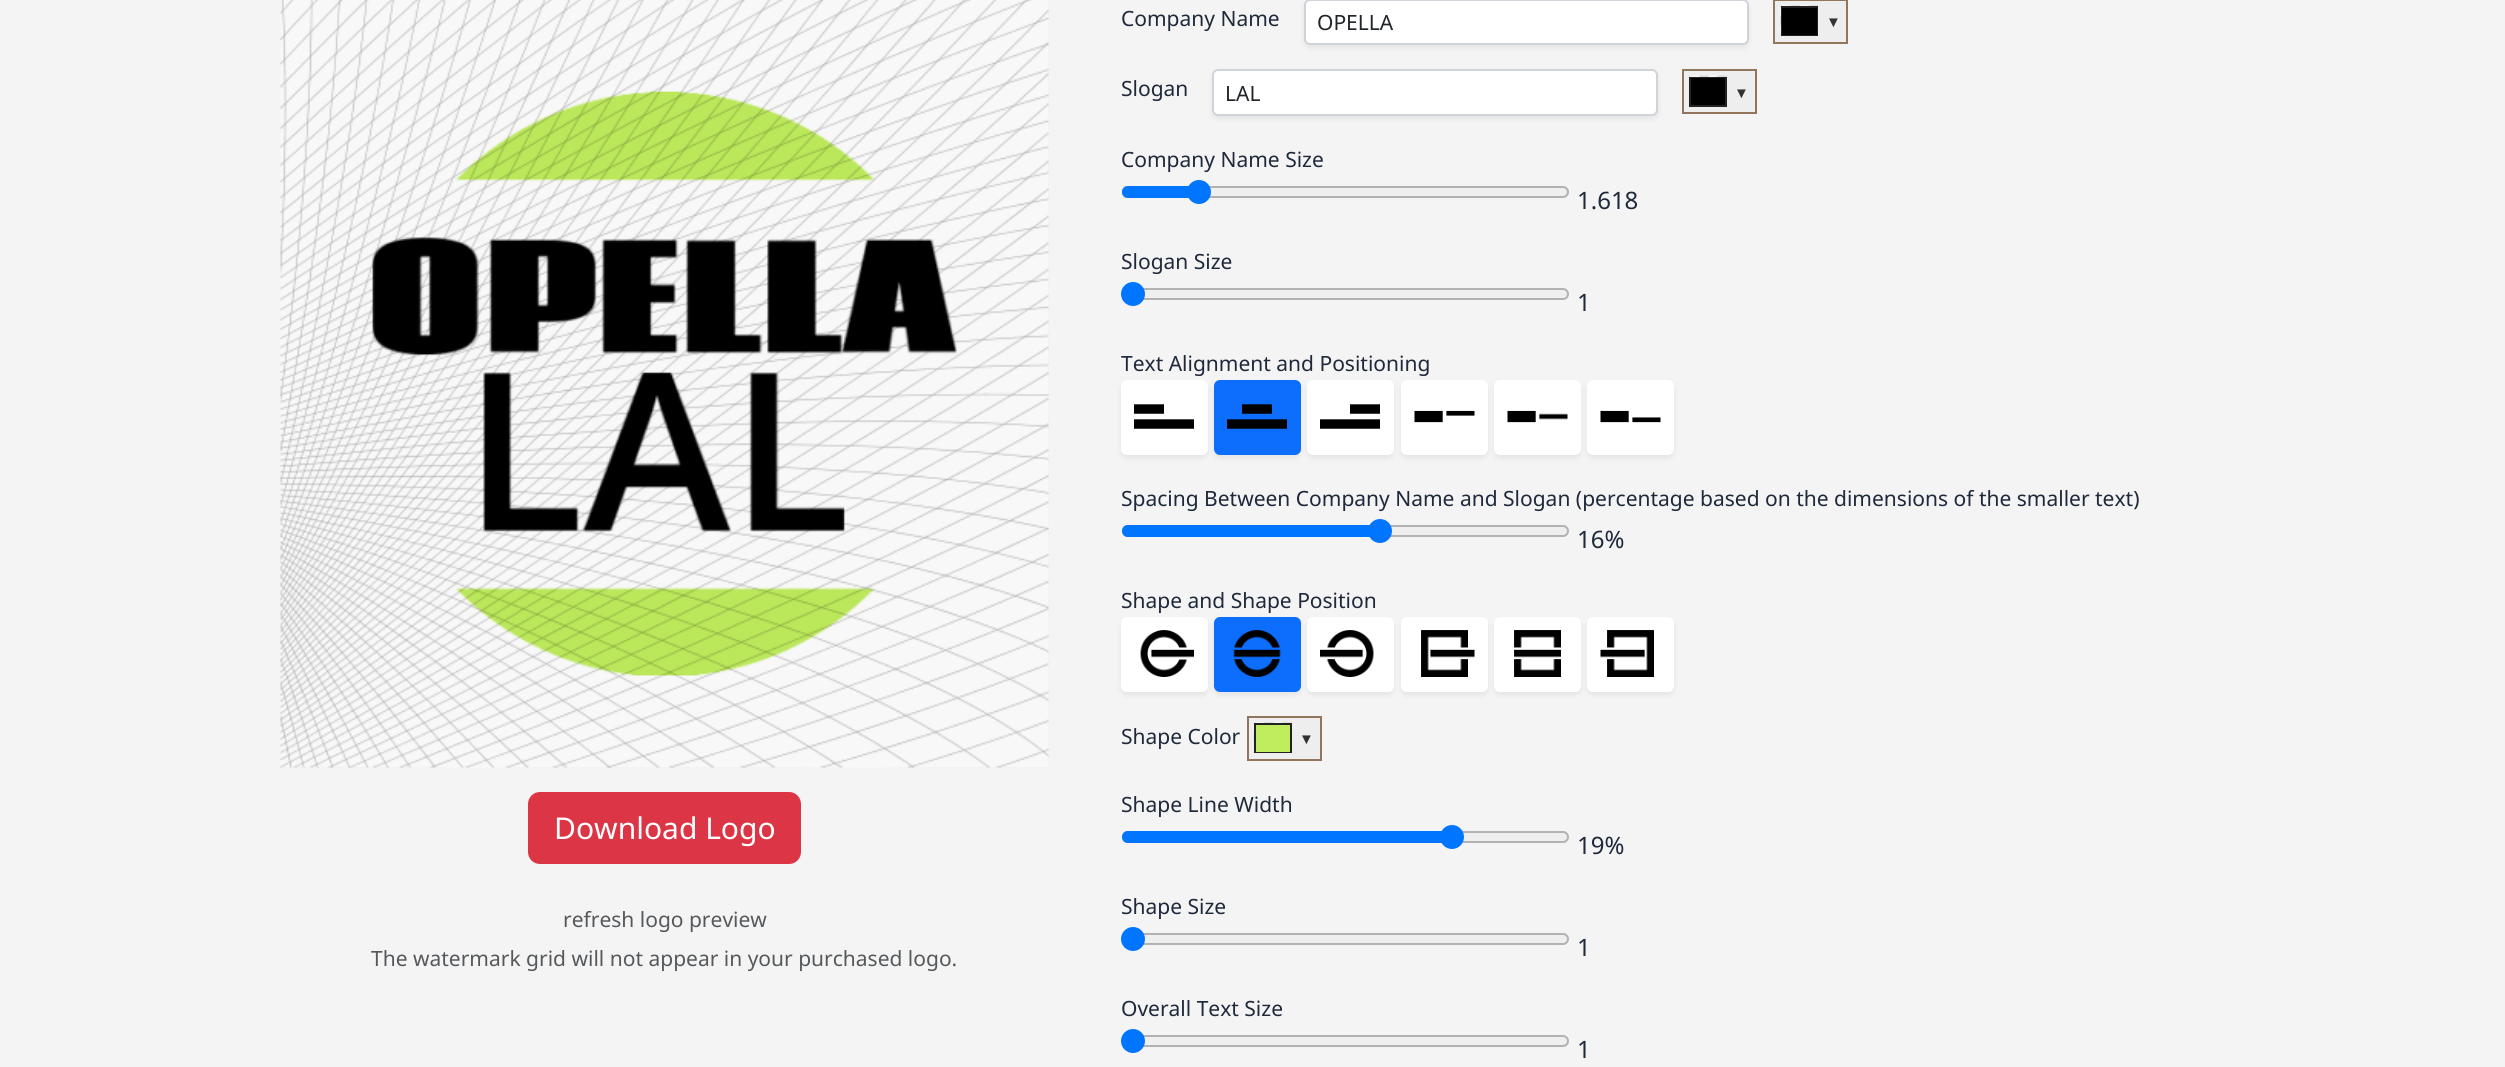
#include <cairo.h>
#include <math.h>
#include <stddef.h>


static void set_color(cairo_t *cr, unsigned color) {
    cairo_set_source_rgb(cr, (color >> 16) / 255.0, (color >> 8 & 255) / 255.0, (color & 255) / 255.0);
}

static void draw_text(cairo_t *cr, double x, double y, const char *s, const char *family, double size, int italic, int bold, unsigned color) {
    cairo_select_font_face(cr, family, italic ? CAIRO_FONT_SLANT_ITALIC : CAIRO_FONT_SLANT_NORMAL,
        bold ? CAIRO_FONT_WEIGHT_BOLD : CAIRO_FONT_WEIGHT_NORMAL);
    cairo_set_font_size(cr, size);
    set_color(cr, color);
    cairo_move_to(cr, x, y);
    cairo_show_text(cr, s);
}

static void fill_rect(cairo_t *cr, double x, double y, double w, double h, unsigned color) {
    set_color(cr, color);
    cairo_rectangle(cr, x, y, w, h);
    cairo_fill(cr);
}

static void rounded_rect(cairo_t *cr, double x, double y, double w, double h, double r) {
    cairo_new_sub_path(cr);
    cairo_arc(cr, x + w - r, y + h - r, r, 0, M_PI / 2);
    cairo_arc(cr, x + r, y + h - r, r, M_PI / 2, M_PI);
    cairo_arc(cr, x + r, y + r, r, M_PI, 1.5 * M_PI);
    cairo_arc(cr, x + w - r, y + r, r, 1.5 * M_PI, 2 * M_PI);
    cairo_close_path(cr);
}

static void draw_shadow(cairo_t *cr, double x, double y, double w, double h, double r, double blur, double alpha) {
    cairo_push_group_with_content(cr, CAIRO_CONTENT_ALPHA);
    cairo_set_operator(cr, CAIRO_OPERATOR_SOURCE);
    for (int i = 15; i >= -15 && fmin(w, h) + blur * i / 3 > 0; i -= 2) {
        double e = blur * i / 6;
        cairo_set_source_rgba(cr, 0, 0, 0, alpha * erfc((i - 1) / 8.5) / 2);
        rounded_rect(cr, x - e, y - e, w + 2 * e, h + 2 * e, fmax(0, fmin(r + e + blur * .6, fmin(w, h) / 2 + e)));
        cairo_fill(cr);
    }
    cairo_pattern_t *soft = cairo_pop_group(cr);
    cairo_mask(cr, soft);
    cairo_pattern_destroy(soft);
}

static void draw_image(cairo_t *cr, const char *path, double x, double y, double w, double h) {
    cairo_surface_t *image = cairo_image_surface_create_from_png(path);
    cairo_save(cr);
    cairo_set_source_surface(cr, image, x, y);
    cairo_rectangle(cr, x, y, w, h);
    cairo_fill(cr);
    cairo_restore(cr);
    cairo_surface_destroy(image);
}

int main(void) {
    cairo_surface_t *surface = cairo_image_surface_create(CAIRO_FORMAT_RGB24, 2505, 1067);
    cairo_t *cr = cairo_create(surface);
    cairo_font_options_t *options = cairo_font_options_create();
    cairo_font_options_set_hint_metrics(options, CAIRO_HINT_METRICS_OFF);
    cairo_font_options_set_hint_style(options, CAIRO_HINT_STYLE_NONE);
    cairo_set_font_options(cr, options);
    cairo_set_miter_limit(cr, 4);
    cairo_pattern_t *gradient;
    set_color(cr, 0xF4F4F4);
    cairo_paint(cr);
    gradient = cairo_pattern_create_linear(280, 384, 665, 384);
    cairo_pattern_add_color_stop_rgba(gradient, 0, 0.933, 0.933, 0.933, 1);
    cairo_pattern_add_color_stop_rgba(gradient, 0.33, 0.933, 0.933, 0.933, 1);
    cairo_pattern_add_color_stop_rgba(gradient, 0.5, 0.973, 0.973, 0.973, 1);
    cairo_pattern_add_color_stop_rgba(gradient, 0.66, 0.933, 0.933, 0.933, 1);
    cairo_pattern_add_color_stop_rgba(gradient, 1, 0.933, 0.933, 0.933, 1);
    cairo_set_source(cr, gradient);
    cairo_pattern_destroy(gradient);
    cairo_rectangle(cr, 281, 767, 384, 1);
    cairo_fill(cr);
    gradient = cairo_pattern_create_linear(665, 384, 1049, 384);
    cairo_pattern_add_color_stop_rgba(gradient, 0, 0.933, 0.933, 0.933, 1);
    cairo_pattern_add_color_stop_rgba(gradient, 0.33, 0.933, 0.933, 0.933, 1);
    cairo_pattern_add_color_stop_rgba(gradient, 0.5, 0.973, 0.973, 0.973, 1);
    cairo_pattern_add_color_stop_rgba(gradient, 0.66, 0.933, 0.933, 0.933, 1);
    cairo_pattern_add_color_stop_rgba(gradient, 1, 0.933, 0.933, 0.933, 1);
    cairo_set_source(cr, gradient);
    cairo_pattern_destroy(gradient);
    cairo_rectangle(cr, 665, 0, 384, 768);
    cairo_fill(cr);
    draw_image(cr, "assets/img1.png", 280, 0, 769, 768);
    set_color(cr, 0xDC3545);
    rounded_rect(cr, 529, 793, 271, 70, 11);
    cairo_fill_preserve(cr);
    cairo_stroke(cr);
    draw_text(cr, 554, 839, "Download Logo", "Noto Sans", 30, 0, 0, 0xFFFFFF);
    draw_text(cr, 563, 927, "refresh logo preview", "Noto Sans", 21, 0, 0, 0x56595C);
    draw_text(cr, 371, 966, "The watermark grid will not appear in your purchased logo.", "Noto Sans", 21, 0, 0, 0x56595C);
    draw_text(cr, 1121, 26, "Company Name", "Noto Sans", 21, 0, 0, 0x1E293B);
    set_color(cr, 0x000000);
    draw_shadow(cr, 1304, 2, 445, 46, 6, 3, 0.07);
    set_color(cr, 0xFFFFFF);
    rounded_rect(cr, 1305, 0, 443, 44, 5);
    cairo_fill_preserve(cr);
    set_color(cr, 0xCED4DA);
    cairo_stroke(cr);
    draw_text(cr, 1317, 30, "OPELLA", "Noto Sans", 21, 0, 0, 0x212529);
    set_color(cr, 0xEEEEEE);
    cairo_rectangle(cr, 1774, 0, 73, 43);
    cairo_fill_preserve(cr);
    set_color(cr, 0x91765D);
    cairo_stroke(cr);
    draw_image(cr, "assets/img2.png", 1780, 5, 38, 31);
    cairo_rectangle(cr, 1782, 7, 35, 28);
    set_color(cr, 0x222222);
    cairo_stroke(cr);
    fill_rect(cr, 1782, 8, 35, 27, 0x000000);
    draw_text(cr, 1826, 27, "▼", "Liberation Sans", 15, 0, 0, 0x333333);
    draw_text(cr, 1121, 96, "Slogan", "Noto Sans", 21, 0, 0, 0x1E293B);
    set_color(cr, 0x000000);
    draw_shadow(cr, 1212, 72, 446, 47, 6, 3, 0.07);
    set_color(cr, 0xFFFFFF);
    rounded_rect(cr, 1213, 70, 444, 45, 5);
    cairo_fill_preserve(cr);
    set_color(cr, 0xCED4DA);
    cairo_stroke(cr);
    draw_text(cr, 1225, 101, "LAL", "Noto Sans", 21, 0, 0, 0x212529);
    set_color(cr, 0xEEEEEE);
    cairo_rectangle(cr, 1683, 70, 73, 43);
    cairo_fill_preserve(cr);
    set_color(cr, 0x91765D);
    cairo_stroke(cr);
    draw_image(cr, "assets/img3.png", 1689, 75, 38, 2);
    cairo_rectangle(cr, 1690, 78, 36, 28);
    set_color(cr, 0x222222);
    cairo_stroke(cr);
    fill_rect(cr, 1691, 78, 34, 27, 0x000000);
    draw_text(cr, 1734, 98, "▼", "Liberation Sans", 15, 0, 0, 0x333333);
    draw_text(cr, 1121, 167, "Company Name Size", "Noto Sans", 21, 0, 0, 0x1E293B);
    set_color(cr, 0xEFEFEF);
    rounded_rect(cr, 1123, 187, 445, 10, 5);
    cairo_fill_preserve(cr);
    set_color(cr, 0xB2B2B2);
    cairo_stroke(cr);
    set_color(cr, 0x0075FF);
    cairo_new_path(cr);
    cairo_move_to(cr, 1128, 186);
    cairo_line_to(cr, 1199, 186);
    cairo_line_to(cr, 1199, 198);
    cairo_line_to(cr, 1128, 198);
    cairo_curve_to(cr, 1124.5, 198, 1122, 195.5, 1122, 192);
    cairo_curve_to(cr, 1122, 188.5, 1124.5, 186, 1128, 186);
    cairo_close_path(cr);
    cairo_fill(cr);
    cairo_arc(cr, 1199, 192, 12, 0, 2 * M_PI);
    cairo_fill(cr);
    draw_text(cr, 1577, 209, "1.618", "Noto Sans", 24, 0, 0, 0x1E293B);
    draw_text(cr, 1121, 269, "Slogan Size", "Noto Sans", 21, 0, 0, 0x1E293B);
    set_color(cr, 0xEFEFEF);
    rounded_rect(cr, 1123, 289, 445, 10, 5);
    cairo_fill_preserve(cr);
    set_color(cr, 0xB2B2B2);
    cairo_stroke(cr);
    set_color(cr, 0x0075FF);
    cairo_arc(cr, 1133, 294, 12, 0, 2 * M_PI);
    cairo_fill(cr);
    draw_text(cr, 1577, 311, "1", "Noto Sans", 24, 0, 0, 0x1E293B);
    draw_text(cr, 1121, 371, "Text Alignment and Positioning", "Noto Sans", 21, 0, 0, 0x1E293B);
    set_color(cr, 0x000000);
    draw_shadow(cr, 1121, 383, 87, 75, 6, 3, 0.07);
    set_color(cr, 0xFFFFFF);
    rounded_rect(cr, 1121, 380, 87, 75, 6);
    cairo_fill(cr);
    draw_image(cr, "assets/img4.png", 1134, 404, 60, 25);
    set_color(cr, 0x000000);
    draw_shadow(cr, 1214, 383, 87, 75, 6, 3, 0.07);
    set_color(cr, 0x0D6EFD);
    rounded_rect(cr, 1215, 381, 85, 73, 5);
    cairo_fill_preserve(cr);
    cairo_stroke(cr);
    draw_image(cr, "assets/img5.png", 1227, 404, 60, 25);
    set_color(cr, 0x000000);
    draw_shadow(cr, 1307, 383, 87, 75, 6, 3, 0.07);
    set_color(cr, 0xFFFFFF);
    rounded_rect(cr, 1307, 380, 87, 75, 6);
    cairo_fill(cr);
    draw_image(cr, "assets/img6.png", 1320, 404, 60, 25);
    set_color(cr, 0x000000);
    draw_shadow(cr, 1401, 383, 87, 75, 6, 3, 0.07);
    set_color(cr, 0xFFFFFF);
    rounded_rect(cr, 1401, 380, 87, 75, 6);
    cairo_fill(cr);
    draw_image(cr, "assets/img7.png", 1414, 410, 61, 13);
    set_color(cr, 0x000000);
    draw_shadow(cr, 1494, 383, 87, 75, 6, 3, 0.07);
    set_color(cr, 0xFFFFFF);
    rounded_rect(cr, 1494, 380, 87, 75, 6);
    cairo_fill(cr);
    draw_image(cr, "assets/img8.png", 1507, 410, 61, 13);
    set_color(cr, 0x000000);
    draw_shadow(cr, 1587, 383, 87, 75, 6, 3, 0.07);
    set_color(cr, 0xFFFFFF);
    rounded_rect(cr, 1587, 380, 87, 75, 6);
    cairo_fill(cr);
    draw_image(cr, "assets/img9.png", 1600, 410, 61, 13);
    draw_text(cr, 1121, 506, "Spacing Between Company Name and Slogan (percentage based on the dimensions of the smaller text)", "Noto Sans", 21, 0, 0, 0x1E293B);
    set_color(cr, 0xEFEFEF);
    rounded_rect(cr, 1123, 526, 445, 10, 5);
    cairo_fill_preserve(cr);
    set_color(cr, 0xB2B2B2);
    cairo_stroke(cr);
    set_color(cr, 0x0075FF);
    cairo_new_path(cr);
    cairo_move_to(cr, 1128, 525);
    cairo_line_to(cr, 1380, 525);
    cairo_line_to(cr, 1380, 537);
    cairo_line_to(cr, 1128, 537);
    cairo_curve_to(cr, 1124.5, 537, 1122, 534.5, 1122, 531);
    cairo_curve_to(cr, 1122, 527.5, 1124.5, 525, 1128, 525);
    cairo_close_path(cr);
    cairo_fill(cr);
    cairo_arc(cr, 1380, 531, 12, 0, 2 * M_PI);
    cairo_fill(cr);
    draw_text(cr, 1577, 548, "16%", "Noto Sans", 24, 0, 0, 0x1E293B);
    draw_text(cr, 1121, 608, "Shape and Shape Position", "Noto Sans", 21, 0, 0, 0x1E293B);
    set_color(cr, 0x000000);
    draw_shadow(cr, 1121, 620, 87, 75, 6, 3, 0.07);
    set_color(cr, 0xFFFFFF);
    rounded_rect(cr, 1121, 617, 87, 75, 6);
    cairo_fill(cr);
    draw_image(cr, "assets/img10.png", 1140, 630, 54, 47);
    set_color(cr, 0x000000);
    draw_shadow(cr, 1214, 620, 87, 75, 6, 3, 0.07);
    set_color(cr, 0x0D6EFD);
    rounded_rect(cr, 1215, 618, 85, 73, 5);
    cairo_fill_preserve(cr);
    cairo_stroke(cr);
    draw_image(cr, "assets/img11.png", 1233, 630, 48, 47);
    set_color(cr, 0x000000);
    draw_shadow(cr, 1307, 620, 87, 75, 6, 3, 0.07);
    set_color(cr, 0xFFFFFF);
    rounded_rect(cr, 1307, 617, 87, 75, 6);
    cairo_fill(cr);
    draw_image(cr, "assets/img12.png", 1320, 630, 54, 47);
    set_color(cr, 0x000000);
    draw_shadow(cr, 1401, 620, 87, 75, 6, 3, 0.07);
    set_color(cr, 0xFFFFFF);
    rounded_rect(cr, 1401, 617, 87, 75, 6);
    cairo_fill(cr);
    draw_image(cr, "assets/img13.png", 1421, 630, 54, 47);
    set_color(cr, 0x000000);
    draw_shadow(cr, 1494, 620, 87, 75, 6, 3, 0.07);
    set_color(cr, 0xFFFFFF);
    rounded_rect(cr, 1494, 617, 87, 75, 6);
    cairo_fill(cr);
    draw_image(cr, "assets/img14.png", 1514, 630, 47, 47);
    set_color(cr, 0x000000);
    draw_shadow(cr, 1587, 620, 87, 75, 6, 3, 0.07);
    set_color(cr, 0xFFFFFF);
    rounded_rect(cr, 1587, 617, 87, 75, 6);
    cairo_fill(cr);
    draw_image(cr, "assets/img15.png", 1600, 630, 54, 47);
    draw_text(cr, 1121, 744, "Shape Color", "Noto Sans", 21, 0, 0, 0x1E293B);
    set_color(cr, 0xEEEEEE);
    cairo_rectangle(cr, 1248, 717, 73, 43);
    cairo_fill_preserve(cr);
    set_color(cr, 0x91765D);
    cairo_stroke(cr);
    draw_image(cr, "assets/img16.png", 1253, 722, 39, 31);
    cairo_rectangle(cr, 1255, 724, 36, 28);
    set_color(cr, 0x222222);
    cairo_stroke(cr);
    fill_rect(cr, 1256, 725, 34, 27, 0xBFED5E);
    draw_text(cr, 1299, 744, "▼", "Liberation Sans", 15, 0, 0, 0x333333);
    draw_text(cr, 1121, 812, "Shape Line Width", "Noto Sans", 21, 0, 0, 0x1E293B);
    set_color(cr, 0xEFEFEF);
    rounded_rect(cr, 1123, 832, 445, 10, 5);
    cairo_fill_preserve(cr);
    set_color(cr, 0xB2B2B2);
    cairo_stroke(cr);
    set_color(cr, 0x0075FF);
    cairo_new_path(cr);
    cairo_move_to(cr, 1128, 831);
    cairo_line_to(cr, 1452, 831);
    cairo_line_to(cr, 1452, 843);
    cairo_line_to(cr, 1128, 843);
    cairo_curve_to(cr, 1124.5, 843, 1122, 840.5, 1122, 837);
    cairo_curve_to(cr, 1122, 833.5, 1124.5, 831, 1128, 831);
    cairo_close_path(cr);
    cairo_fill(cr);
    cairo_arc(cr, 1452, 837, 12, 0, 2 * M_PI);
    cairo_fill(cr);
    draw_text(cr, 1577, 854, "19%", "Noto Sans", 24, 0, 0, 0x1E293B);
    draw_text(cr, 1121, 914, "Shape Size", "Noto Sans", 21, 0, 0, 0x1E293B);
    set_color(cr, 0xEFEFEF);
    rounded_rect(cr, 1123, 934, 445, 10, 5);
    cairo_fill_preserve(cr);
    set_color(cr, 0xB2B2B2);
    cairo_stroke(cr);
    set_color(cr, 0x0075FF);
    cairo_arc(cr, 1133, 939, 12, 0, 2 * M_PI);
    cairo_fill(cr);
    draw_text(cr, 1577, 956, "1", "Noto Sans", 24, 0, 0, 0x1E293B);
    draw_text(cr, 1121, 1016, "Overall Text Size", "Noto Sans", 21, 0, 0, 0x1E293B);
    set_color(cr, 0xEFEFEF);
    rounded_rect(cr, 1123, 1036, 445, 10, 5);
    cairo_fill_preserve(cr);
    set_color(cr, 0xB2B2B2);
    cairo_stroke(cr);
    set_color(cr, 0x0075FF);
    cairo_arc(cr, 1133, 1041, 12, 0, 2 * M_PI);
    cairo_fill(cr);
    draw_text(cr, 1577, 1058, "1", "Noto Sans", 24, 0, 0, 0x1E293B);
    cairo_surface_write_to_png(surface, "output.png");
    cairo_font_options_destroy(options);
    cairo_destroy(cr);
    cairo_surface_destroy(surface);
    return 0;
}
